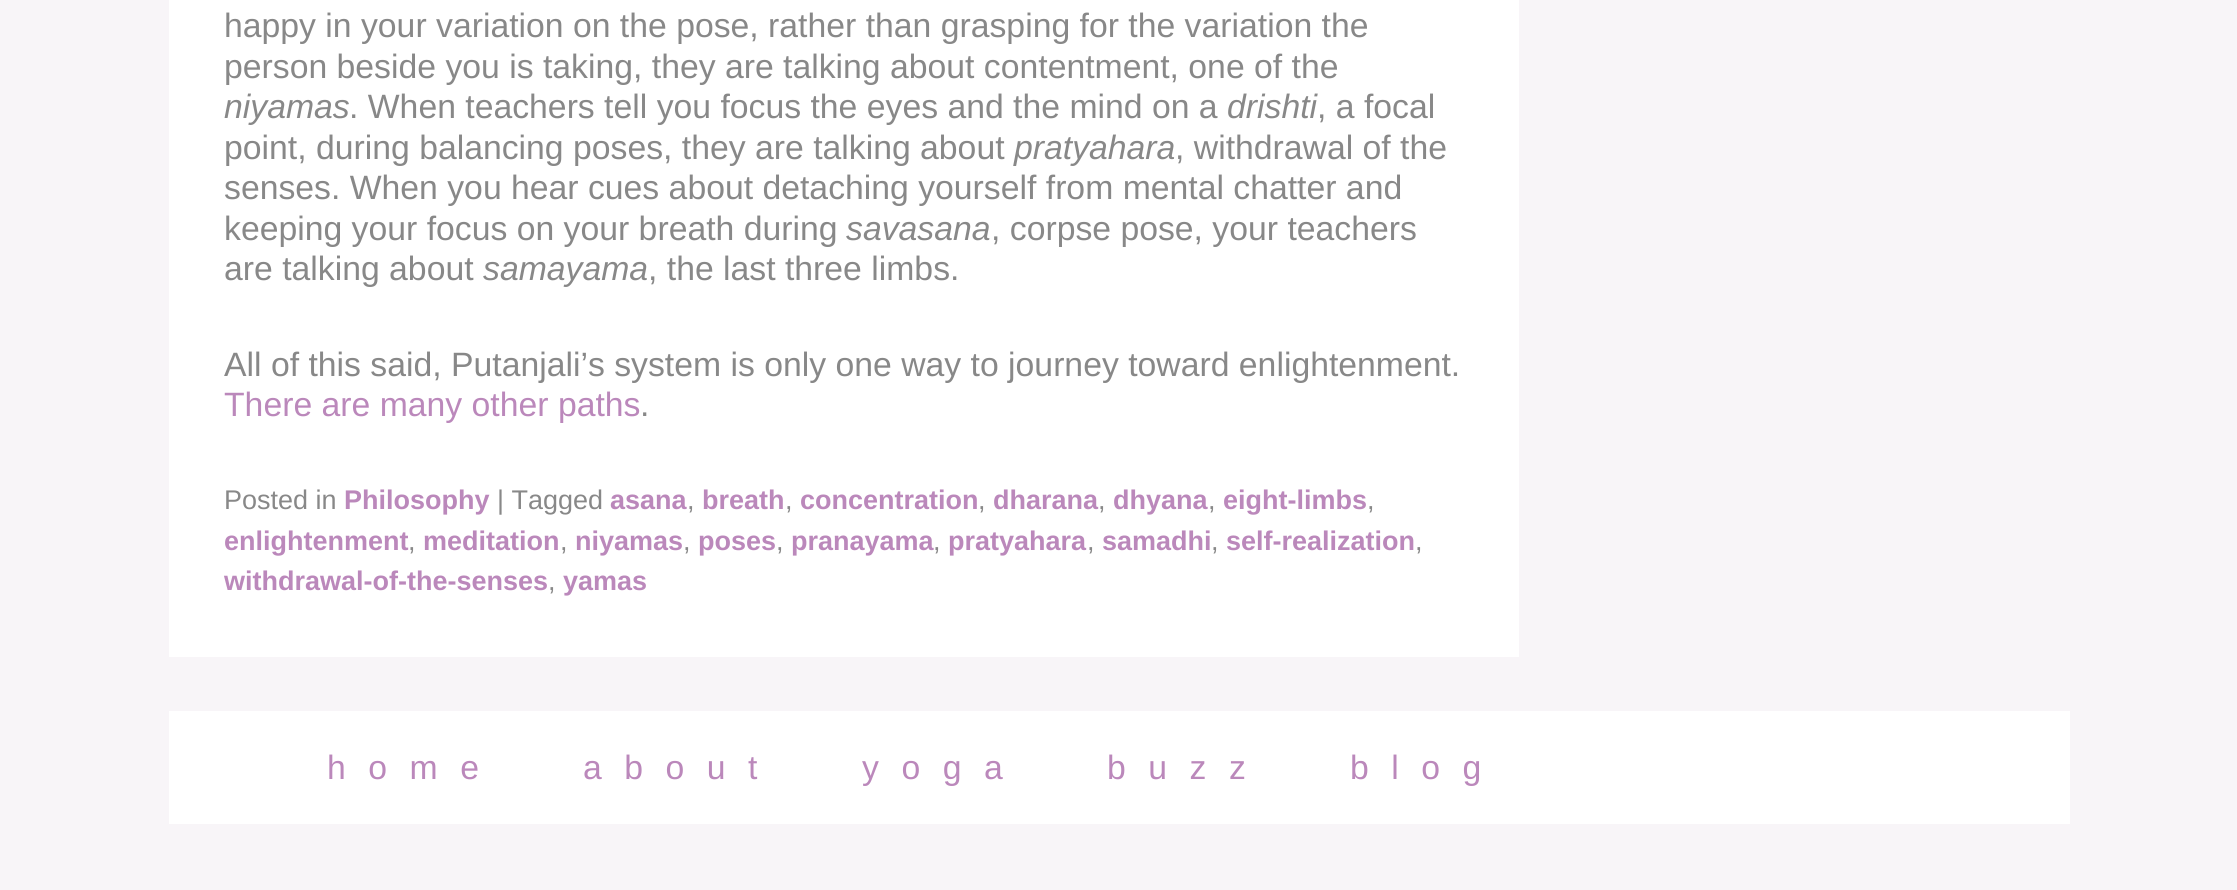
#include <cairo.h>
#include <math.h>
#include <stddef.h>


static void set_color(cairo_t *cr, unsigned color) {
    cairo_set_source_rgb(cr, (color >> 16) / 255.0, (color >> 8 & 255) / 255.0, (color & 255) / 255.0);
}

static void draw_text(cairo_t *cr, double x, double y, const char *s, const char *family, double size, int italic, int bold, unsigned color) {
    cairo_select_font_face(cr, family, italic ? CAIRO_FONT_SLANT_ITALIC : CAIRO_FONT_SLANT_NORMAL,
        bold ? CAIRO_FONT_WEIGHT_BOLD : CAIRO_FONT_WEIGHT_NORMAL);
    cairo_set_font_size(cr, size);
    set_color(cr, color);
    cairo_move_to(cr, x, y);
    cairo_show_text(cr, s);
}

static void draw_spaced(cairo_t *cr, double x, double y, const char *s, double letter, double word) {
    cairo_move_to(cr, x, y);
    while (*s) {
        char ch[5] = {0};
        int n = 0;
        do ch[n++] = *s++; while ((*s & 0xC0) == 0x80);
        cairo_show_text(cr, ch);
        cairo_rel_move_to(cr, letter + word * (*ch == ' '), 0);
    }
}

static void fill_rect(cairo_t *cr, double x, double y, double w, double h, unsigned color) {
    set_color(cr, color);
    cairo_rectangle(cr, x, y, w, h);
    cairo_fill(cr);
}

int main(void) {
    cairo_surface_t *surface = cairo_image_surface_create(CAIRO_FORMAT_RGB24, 2237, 890);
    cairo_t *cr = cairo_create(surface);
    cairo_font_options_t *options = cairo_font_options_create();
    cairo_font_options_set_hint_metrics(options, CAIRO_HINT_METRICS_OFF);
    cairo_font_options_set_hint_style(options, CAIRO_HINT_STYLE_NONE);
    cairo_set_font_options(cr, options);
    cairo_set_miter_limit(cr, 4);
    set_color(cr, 0xF8F5F8);
    cairo_paint(cr);
    fill_rect(cr, 169, 0, 1350, 657, 0xFFFFFF);
    draw_text(cr, 224, 37, "happy in your variation on the pose, rather than grasping for the variation the", "Liberation Sans", 33.75, 0, 0, 0x888888);
    draw_text(cr, 224, 78, "person beside you is taking, they are talking about contentment, one of the", "Liberation Sans", 33.75, 0, 0, 0x888888);
    draw_text(cr, 224, 118, "niyamas", "Liberation Sans", 33.75, 1, 0, 0x888888);
    draw_text(cr, 349, 118, ". When teachers tell you focus the eyes and the mind on a", "Liberation Sans", 33.75, 0, 0, 0x888888);
    draw_text(cr, 1227, 118, "drishti", "Liberation Sans", 33.75, 1, 0, 0x888888);
    draw_text(cr, 1317, 118, ", a focal", "Liberation Sans", 33.75, 0, 0, 0x888888);
    draw_text(cr, 224, 159, "point, during balancing poses, they are talking about", "Liberation Sans", 33.75, 0, 0, 0x888888);
    draw_text(cr, 1014, 159, "pratyahara", "Liberation Sans", 33.75, 1, 0, 0x888888);
    draw_text(cr, 1175, 159, ", withdrawal of the", "Liberation Sans", 33.75, 0, 0, 0x888888);
    draw_text(cr, 224, 199, "senses. When you hear cues about detaching yourself from mental chatter and", "Liberation Sans", 33.75, 0, 0, 0x888888);
    draw_text(cr, 224, 240, "keeping your focus on your breath during", "Liberation Sans", 33.75, 0, 0, 0x888888);
    draw_text(cr, 846, 240, "savasana", "Liberation Sans", 33.75, 1, 0, 0x888888);
    draw_text(cr, 991, 240, ", corpse pose, your teachers", "Liberation Sans", 33.75, 0, 0, 0x888888);
    draw_text(cr, 224, 280, "are talking about", "Liberation Sans", 33.75, 0, 0, 0x888888);
    draw_text(cr, 483, 280, "samayama", "Liberation Sans", 33.75, 1, 0, 0x888888);
    draw_text(cr, 648, 280, ", the last three limbs.", "Liberation Sans", 33.75, 0, 0, 0x888888);
    draw_text(cr, 224, 376, "All of this said, Putanjali’s system is only one way to journey toward enlightenment.", "Liberation Sans", 33.75, 0, 0, 0x888888);
    draw_text(cr, 224, 416, "There are many other paths", "Liberation Sans", 33.75, 0, 0, 0xBB88BB);
    draw_text(cr, 640, 416, ".", "Liberation Sans", 33.75, 0, 0, 0x888888);
    draw_text(cr, 224, 509, "Posted in", "Liberation Sans", 27, 0, 0, 0x888888);
    draw_text(cr, 344, 509, "Philosophy", "Liberation Sans", 27, 0, 1, 0xBB88BB);
    draw_text(cr, 497, 509, "| Tagged", "Liberation Sans", 27, 0, 0, 0x888888);
    draw_text(cr, 610, 509, "asana", "Liberation Sans", 27, 0, 1, 0xBB88BB);
    draw_text(cr, 687, 509, ",", "Liberation Sans", 27, 0, 0, 0x888888);
    draw_text(cr, 702, 509, "breath", "Liberation Sans", 27, 0, 1, 0xBB88BB);
    draw_text(cr, 785, 509, ",", "Liberation Sans", 27, 0, 0, 0x888888);
    draw_text(cr, 800, 509, "concentration", "Liberation Sans", 27, 0, 1, 0xBB88BB);
    draw_text(cr, 978, 509, ",", "Liberation Sans", 27, 0, 0, 0x888888);
    draw_text(cr, 993, 509, "dharana", "Liberation Sans", 27, 0, 1, 0xBB88BB);
    draw_text(cr, 1098, 509, ",", "Liberation Sans", 27, 0, 0, 0x888888);
    draw_text(cr, 1113, 509, "dhyana", "Liberation Sans", 27, 0, 1, 0xBB88BB);
    draw_text(cr, 1208, 509, ",", "Liberation Sans", 27, 0, 0, 0x888888);
    draw_text(cr, 1223, 509, "eight-limbs", "Liberation Sans", 27, 0, 1, 0xBB88BB);
    draw_text(cr, 1367, 509, ",", "Liberation Sans", 27, 0, 0, 0x888888);
    draw_text(cr, 224, 550, "enlightenment", "Liberation Sans", 27, 0, 1, 0xBB88BB);
    draw_text(cr, 408, 550, ",", "Liberation Sans", 27, 0, 0, 0x888888);
    draw_text(cr, 423, 550, "meditation", "Liberation Sans", 27, 0, 1, 0xBB88BB);
    draw_text(cr, 560, 550, ",", "Liberation Sans", 27, 0, 0, 0x888888);
    draw_text(cr, 575, 550, "niyamas", "Liberation Sans", 27, 0, 1, 0xBB88BB);
    draw_text(cr, 683, 550, ",", "Liberation Sans", 27, 0, 0, 0x888888);
    draw_text(cr, 698, 550, "poses", "Liberation Sans", 27, 0, 1, 0xBB88BB);
    draw_text(cr, 776, 550, ",", "Liberation Sans", 27, 0, 0, 0x888888);
    draw_text(cr, 791, 550, "pranayama", "Liberation Sans", 27, 0, 1, 0xBB88BB);
    draw_text(cr, 933, 550, ",", "Liberation Sans", 27, 0, 0, 0x888888);
    draw_text(cr, 948, 550, "pratyahara", "Liberation Sans", 27, 0, 1, 0xBB88BB);
    draw_text(cr, 1087, 550, ",", "Liberation Sans", 27, 0, 0, 0x888888);
    draw_text(cr, 1102, 550, "samadhi", "Liberation Sans", 27, 0, 1, 0xBB88BB);
    draw_text(cr, 1211, 550, ",", "Liberation Sans", 27, 0, 0, 0x888888);
    draw_text(cr, 1226, 550, "self-realization", "Liberation Sans", 27, 0, 1, 0xBB88BB);
    draw_text(cr, 1415, 550, ",", "Liberation Sans", 27, 0, 0, 0x888888);
    draw_text(cr, 224, 590, "withdrawal-of-the-senses", "Liberation Sans", 27, 0, 1, 0xBB88BB);
    draw_text(cr, 548, 590, ",", "Liberation Sans", 27, 0, 0, 0x888888);
    draw_text(cr, 563, 590, "yamas", "Liberation Sans", 27, 0, 1, 0xBB88BB);
    fill_rect(cr, 169, 711, 1901, 113, 0xFFFFFF);
    cairo_select_font_face(cr, "Liberation Sans", CAIRO_FONT_SLANT_NORMAL, CAIRO_FONT_WEIGHT_NORMAL);
    cairo_set_font_size(cr, 33.75);
    set_color(cr, 0xBB88BB);
    draw_spaced(cr, 327, 779, "home", 22.5, 0);
    draw_spaced(cr, 583, 779, "about", 22.5, 0);
    draw_spaced(cr, 862, 779, "yoga", 22.5, 0);
    draw_spaced(cr, 1107, 779, "buzz", 22.5, 0);
    draw_spaced(cr, 1350, 779, "blog", 22.5, 0);
    cairo_surface_write_to_png(surface, "output.png");
    cairo_font_options_destroy(options);
    cairo_destroy(cr);
    cairo_surface_destroy(surface);
    return 0;
}
